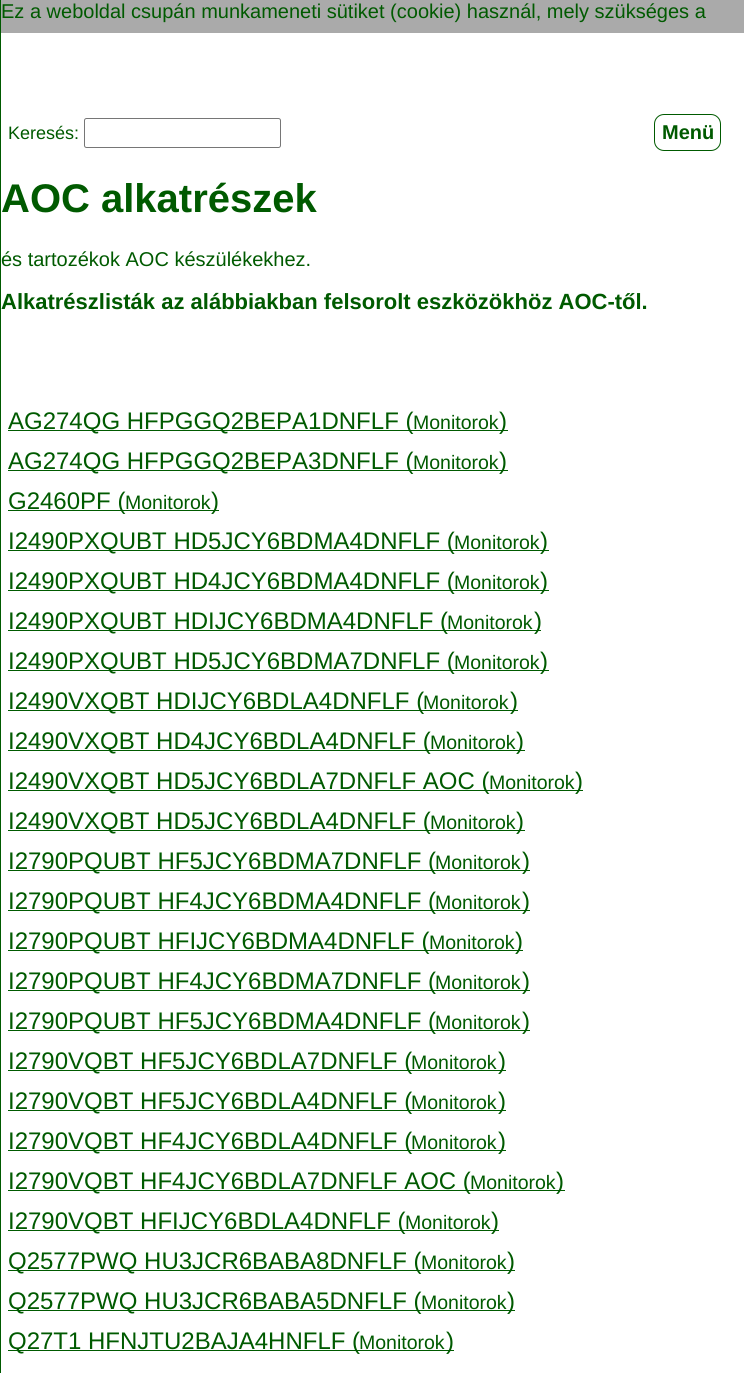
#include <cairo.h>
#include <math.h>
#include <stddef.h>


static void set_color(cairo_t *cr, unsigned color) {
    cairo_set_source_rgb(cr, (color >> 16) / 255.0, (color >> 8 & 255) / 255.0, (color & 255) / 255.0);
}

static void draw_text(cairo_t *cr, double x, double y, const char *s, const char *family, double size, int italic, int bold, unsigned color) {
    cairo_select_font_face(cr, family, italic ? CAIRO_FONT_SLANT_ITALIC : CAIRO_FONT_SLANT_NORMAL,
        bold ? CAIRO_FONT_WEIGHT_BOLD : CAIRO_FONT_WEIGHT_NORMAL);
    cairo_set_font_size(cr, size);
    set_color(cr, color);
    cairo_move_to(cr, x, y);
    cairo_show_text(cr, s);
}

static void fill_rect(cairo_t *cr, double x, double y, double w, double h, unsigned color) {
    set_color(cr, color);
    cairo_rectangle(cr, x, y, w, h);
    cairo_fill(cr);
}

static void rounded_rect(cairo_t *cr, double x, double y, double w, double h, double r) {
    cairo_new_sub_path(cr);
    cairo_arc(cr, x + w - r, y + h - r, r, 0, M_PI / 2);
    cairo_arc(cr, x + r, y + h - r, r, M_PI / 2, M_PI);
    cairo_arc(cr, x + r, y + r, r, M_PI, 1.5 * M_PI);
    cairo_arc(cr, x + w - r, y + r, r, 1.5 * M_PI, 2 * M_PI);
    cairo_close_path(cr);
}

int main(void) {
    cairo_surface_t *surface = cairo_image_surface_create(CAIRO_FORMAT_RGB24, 744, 1373);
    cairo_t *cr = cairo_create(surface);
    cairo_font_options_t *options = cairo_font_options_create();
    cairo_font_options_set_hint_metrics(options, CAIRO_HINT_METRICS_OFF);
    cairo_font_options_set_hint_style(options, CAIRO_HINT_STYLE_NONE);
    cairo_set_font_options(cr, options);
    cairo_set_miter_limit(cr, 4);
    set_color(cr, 0xFFFFFF);
    cairo_paint(cr);
    fill_rect(cr, 0, 0, 1, 1373, 0x005A00);
    fill_rect(cr, 1, 0, 743, 33, 0xAAAAAA);
    draw_text(cr, 1, 18, "Ez a weboldal csupán munkameneti sütiket (cookie) használ, mely szükséges a", "Liberation Sans", 20, 0, 0, 0x005A00);
    draw_text(cr, 8, 139, "Keresés:", "Liberation Sans", 18, 0, 0, 0x005A00);
    rounded_rect(cr, 84.5, 118.5, 196, 29, 2);
    set_color(cr, 0x767676);
    cairo_set_line_width(cr, 1);
    cairo_stroke(cr);
    rounded_rect(cr, 654.5, 114.5, 66, 36, 9.5);
    set_color(cr, 0x005A00);
    cairo_stroke(cr);
    draw_text(cr, 662, 139, "Menü", "Liberation Sans", 20, 0, 1, 0x005A00);
    draw_text(cr, 1, 212, "AOC alkatrészek", "Liberation Sans", 40, 0, 1, 0x005A00);
    draw_text(cr, 1, 266, "és tartozékok AOC készülékekhez.", "Liberation Sans", 20, 0, 0, 0x005A00);
    draw_text(cr, 1, 309, "Alkatrészlisták az alábbiakban felsorolt eszközökhöz AOC-től.", "Liberation Sans", 22, 0, 1, 0x005A00);
    fill_rect(cr, 8, 430, 500, 1, 0x005A00);
    draw_text(cr, 8, 429, "AG274QG HFPGGQ2BEPA1DNFLF (", "Liberation Sans", 24, 0, 0, 0x005A00);
    draw_text(cr, 413, 429, "Monitorok", "Liberation Sans", 19.5, 0, 0, 0x005A00);
    draw_text(cr, 499, 429, ")", "Liberation Sans", 24, 0, 0, 0x005A00);
    fill_rect(cr, 8, 470, 500, 1, 0x005A00);
    draw_text(cr, 8, 469, "AG274QG HFPGGQ2BEPA3DNFLF (", "Liberation Sans", 24, 0, 0, 0x005A00);
    draw_text(cr, 413, 469, "Monitorok", "Liberation Sans", 19.5, 0, 0, 0x005A00);
    draw_text(cr, 499, 469, ")", "Liberation Sans", 24, 0, 0, 0x005A00);
    fill_rect(cr, 8, 510, 211, 1, 0x005A00);
    draw_text(cr, 8, 509, "G2460PF (", "Liberation Sans", 24, 0, 0, 0x005A00);
    draw_text(cr, 125, 509, "Monitorok", "Liberation Sans", 19.5, 0, 0, 0x005A00);
    draw_text(cr, 211, 509, ")", "Liberation Sans", 24, 0, 0, 0x005A00);
    fill_rect(cr, 8, 550, 446, 1, 0x005A00);
    draw_text(cr, 8, 549, "I2490PXQUBT HD5JCY6BDMA4DNFLF (", "Liberation Sans", 24, 0, 0, 0x005A00);
    draw_text(cr, 454, 549, "Monitorok", "Liberation Sans", 19.5, 0, 0, 0x005A00);
    fill_rect(cr, 454, 550, 95, 1, 0x005A00);
    draw_text(cr, 540, 549, ")", "Liberation Sans", 24, 0, 0, 0x005A00);
    fill_rect(cr, 8, 590, 446, 1, 0x005A00);
    draw_text(cr, 8, 589, "I2490PXQUBT HD4JCY6BDMA4DNFLF (", "Liberation Sans", 24, 0, 0, 0x005A00);
    draw_text(cr, 454, 589, "Monitorok", "Liberation Sans", 19.5, 0, 0, 0x005A00);
    fill_rect(cr, 454, 590, 95, 1, 0x005A00);
    draw_text(cr, 540, 589, ")", "Liberation Sans", 24, 0, 0, 0x005A00);
    fill_rect(cr, 8, 630, 533, 1, 0x005A00);
    draw_text(cr, 8, 629, "I2490PXQUBT HDIJCY6BDMA4DNFLF (", "Liberation Sans", 24, 0, 0, 0x005A00);
    draw_text(cr, 447, 629, "Monitorok", "Liberation Sans", 19.5, 0, 0, 0x005A00);
    draw_text(cr, 534, 629, ")", "Liberation Sans", 24, 0, 0, 0x005A00);
    fill_rect(cr, 8, 670, 446, 1, 0x005A00);
    draw_text(cr, 8, 669, "I2490PXQUBT HD5JCY6BDMA7DNFLF (", "Liberation Sans", 24, 0, 0, 0x005A00);
    draw_text(cr, 454, 669, "Monitorok", "Liberation Sans", 19.5, 0, 0, 0x005A00);
    fill_rect(cr, 454, 670, 95, 1, 0x005A00);
    draw_text(cr, 540, 669, ")", "Liberation Sans", 24, 0, 0, 0x005A00);
    fill_rect(cr, 8, 710, 510, 1, 0x005A00);
    draw_text(cr, 8, 709, "I2490VXQBT HDIJCY6BDLA4DNFLF (", "Liberation Sans", 24, 0, 0, 0x005A00);
    draw_text(cr, 423, 709, "Monitorok", "Liberation Sans", 19.5, 0, 0, 0x005A00);
    draw_text(cr, 510, 709, ")", "Liberation Sans", 24, 0, 0, 0x005A00);
    fill_rect(cr, 8, 750, 422, 1, 0x005A00);
    draw_text(cr, 8, 749, "I2490VXQBT HD4JCY6BDLA4DNFLF (", "Liberation Sans", 24, 0, 0, 0x005A00);
    draw_text(cr, 430, 749, "Monitorok", "Liberation Sans", 19.5, 0, 0, 0x005A00);
    fill_rect(cr, 430, 750, 95, 1, 0x005A00);
    draw_text(cr, 516, 749, ")", "Liberation Sans", 24, 0, 0, 0x005A00);
    fill_rect(cr, 8, 790, 575, 1, 0x005A00);
    draw_text(cr, 8, 789, "I2490VXQBT HD5JCY6BDLA7DNFLF AOC (", "Liberation Sans", 24, 0, 0, 0x005A00);
    draw_text(cr, 489, 789, "Monitorok", "Liberation Sans", 19.5, 0, 0, 0x005A00);
    draw_text(cr, 575, 789, ")", "Liberation Sans", 24, 0, 0, 0x005A00);
    fill_rect(cr, 8, 830, 422, 1, 0x005A00);
    draw_text(cr, 8, 829, "I2490VXQBT HD5JCY6BDLA4DNFLF (", "Liberation Sans", 24, 0, 0, 0x005A00);
    draw_text(cr, 430, 829, "Monitorok", "Liberation Sans", 19.5, 0, 0, 0x005A00);
    fill_rect(cr, 430, 830, 95, 1, 0x005A00);
    draw_text(cr, 516, 829, ")", "Liberation Sans", 24, 0, 0, 0x005A00);
    fill_rect(cr, 8, 870, 427, 1, 0x005A00);
    draw_text(cr, 8, 869, "I2790PQUBT HF5JCY6BDMA7DNFLF (", "Liberation Sans", 24, 0, 0, 0x005A00);
    draw_text(cr, 435, 869, "Monitorok", "Liberation Sans", 19.5, 0, 0, 0x005A00);
    fill_rect(cr, 435, 870, 95, 1, 0x005A00);
    draw_text(cr, 522, 869, ")", "Liberation Sans", 24, 0, 0, 0x005A00);
    fill_rect(cr, 8, 910, 427, 1, 0x005A00);
    draw_text(cr, 8, 909, "I2790PQUBT HF4JCY6BDMA4DNFLF (", "Liberation Sans", 24, 0, 0, 0x005A00);
    draw_text(cr, 435, 909, "Monitorok", "Liberation Sans", 19.5, 0, 0, 0x005A00);
    fill_rect(cr, 435, 910, 95, 1, 0x005A00);
    draw_text(cr, 522, 909, ")", "Liberation Sans", 24, 0, 0, 0x005A00);
    fill_rect(cr, 8, 950, 515, 1, 0x005A00);
    draw_text(cr, 8, 949, "I2790PQUBT HFIJCY6BDMA4DNFLF (", "Liberation Sans", 24, 0, 0, 0x005A00);
    draw_text(cr, 429, 949, "Monitorok", "Liberation Sans", 19.5, 0, 0, 0x005A00);
    draw_text(cr, 515, 949, ")", "Liberation Sans", 24, 0, 0, 0x005A00);
    fill_rect(cr, 8, 990, 427, 1, 0x005A00);
    draw_text(cr, 8, 989, "I2790PQUBT HF4JCY6BDMA7DNFLF (", "Liberation Sans", 24, 0, 0, 0x005A00);
    draw_text(cr, 435, 989, "Monitorok", "Liberation Sans", 19.5, 0, 0, 0x005A00);
    fill_rect(cr, 435, 990, 95, 1, 0x005A00);
    draw_text(cr, 522, 989, ")", "Liberation Sans", 24, 0, 0, 0x005A00);
    fill_rect(cr, 8, 1030, 427, 1, 0x005A00);
    draw_text(cr, 8, 1029, "I2790PQUBT HF5JCY6BDMA4DNFLF (", "Liberation Sans", 24, 0, 0, 0x005A00);
    draw_text(cr, 435, 1029, "Monitorok", "Liberation Sans", 19.5, 0, 0, 0x005A00);
    fill_rect(cr, 435, 1030, 95, 1, 0x005A00);
    draw_text(cr, 522, 1029, ")", "Liberation Sans", 24, 0, 0, 0x005A00);
    fill_rect(cr, 8, 1070, 403, 1, 0x005A00);
    draw_text(cr, 8, 1069, "I2790VQBT HF5JCY6BDLA7DNFLF (", "Liberation Sans", 24, 0, 0, 0x005A00);
    draw_text(cr, 411, 1069, "Monitorok", "Liberation Sans", 19.5, 0, 0, 0x005A00);
    fill_rect(cr, 411, 1070, 95, 1, 0x005A00);
    draw_text(cr, 498, 1069, ")", "Liberation Sans", 24, 0, 0, 0x005A00);
    fill_rect(cr, 8, 1110, 403, 1, 0x005A00);
    draw_text(cr, 8, 1109, "I2790VQBT HF5JCY6BDLA4DNFLF (", "Liberation Sans", 24, 0, 0, 0x005A00);
    draw_text(cr, 411, 1109, "Monitorok", "Liberation Sans", 19.5, 0, 0, 0x005A00);
    fill_rect(cr, 411, 1110, 95, 1, 0x005A00);
    draw_text(cr, 498, 1109, ")", "Liberation Sans", 24, 0, 0, 0x005A00);
    fill_rect(cr, 8, 1150, 403, 1, 0x005A00);
    draw_text(cr, 8, 1149, "I2790VQBT HF4JCY6BDLA4DNFLF (", "Liberation Sans", 24, 0, 0, 0x005A00);
    draw_text(cr, 411, 1149, "Monitorok", "Liberation Sans", 19.5, 0, 0, 0x005A00);
    fill_rect(cr, 411, 1150, 95, 1, 0x005A00);
    draw_text(cr, 498, 1149, ")", "Liberation Sans", 24, 0, 0, 0x005A00);
    fill_rect(cr, 8, 1190, 557, 1, 0x005A00);
    draw_text(cr, 8, 1189, "I2790VQBT HF4JCY6BDLA7DNFLF AOC (", "Liberation Sans", 24, 0, 0, 0x005A00);
    draw_text(cr, 470, 1189, "Monitorok", "Liberation Sans", 19.5, 0, 0, 0x005A00);
    draw_text(cr, 556, 1189, ")", "Liberation Sans", 24, 0, 0, 0x005A00);
    fill_rect(cr, 8, 1230, 491, 1, 0x005A00);
    draw_text(cr, 8, 1229, "I2790VQBT HFIJCY6BDLA4DNFLF (", "Liberation Sans", 24, 0, 0, 0x005A00);
    draw_text(cr, 405, 1229, "Monitorok", "Liberation Sans", 19.5, 0, 0, 0x005A00);
    draw_text(cr, 491, 1229, ")", "Liberation Sans", 24, 0, 0, 0x005A00);
    fill_rect(cr, 8, 1270, 507, 1, 0x005A00);
    draw_text(cr, 8, 1269, "Q2577PWQ HU3JCR6BABA8DNFLF (", "Liberation Sans", 24, 0, 0, 0x005A00);
    draw_text(cr, 421, 1269, "Monitorok", "Liberation Sans", 19.5, 0, 0, 0x005A00);
    draw_text(cr, 507, 1269, ")", "Liberation Sans", 24, 0, 0, 0x005A00);
    fill_rect(cr, 8, 1310, 507, 1, 0x005A00);
    draw_text(cr, 8, 1309, "Q2577PWQ HU3JCR6BABA5DNFLF (", "Liberation Sans", 24, 0, 0, 0x005A00);
    draw_text(cr, 421, 1309, "Monitorok", "Liberation Sans", 19.5, 0, 0, 0x005A00);
    draw_text(cr, 507, 1309, ")", "Liberation Sans", 24, 0, 0, 0x005A00);
    fill_rect(cr, 8, 1350, 351, 1, 0x005A00);
    draw_text(cr, 8, 1349, "Q27T1 HFNJTU2BAJA4HNFLF (", "Liberation Sans", 24, 0, 0, 0x005A00);
    draw_text(cr, 359, 1349, "Monitorok", "Liberation Sans", 19.5, 0, 0, 0x005A00);
    fill_rect(cr, 359, 1350, 95, 1, 0x005A00);
    draw_text(cr, 446, 1349, ")", "Liberation Sans", 24, 0, 0, 0x005A00);
    cairo_surface_write_to_png(surface, "output.png");
    cairo_font_options_destroy(options);
    cairo_destroy(cr);
    cairo_surface_destroy(surface);
    return 0;
}
